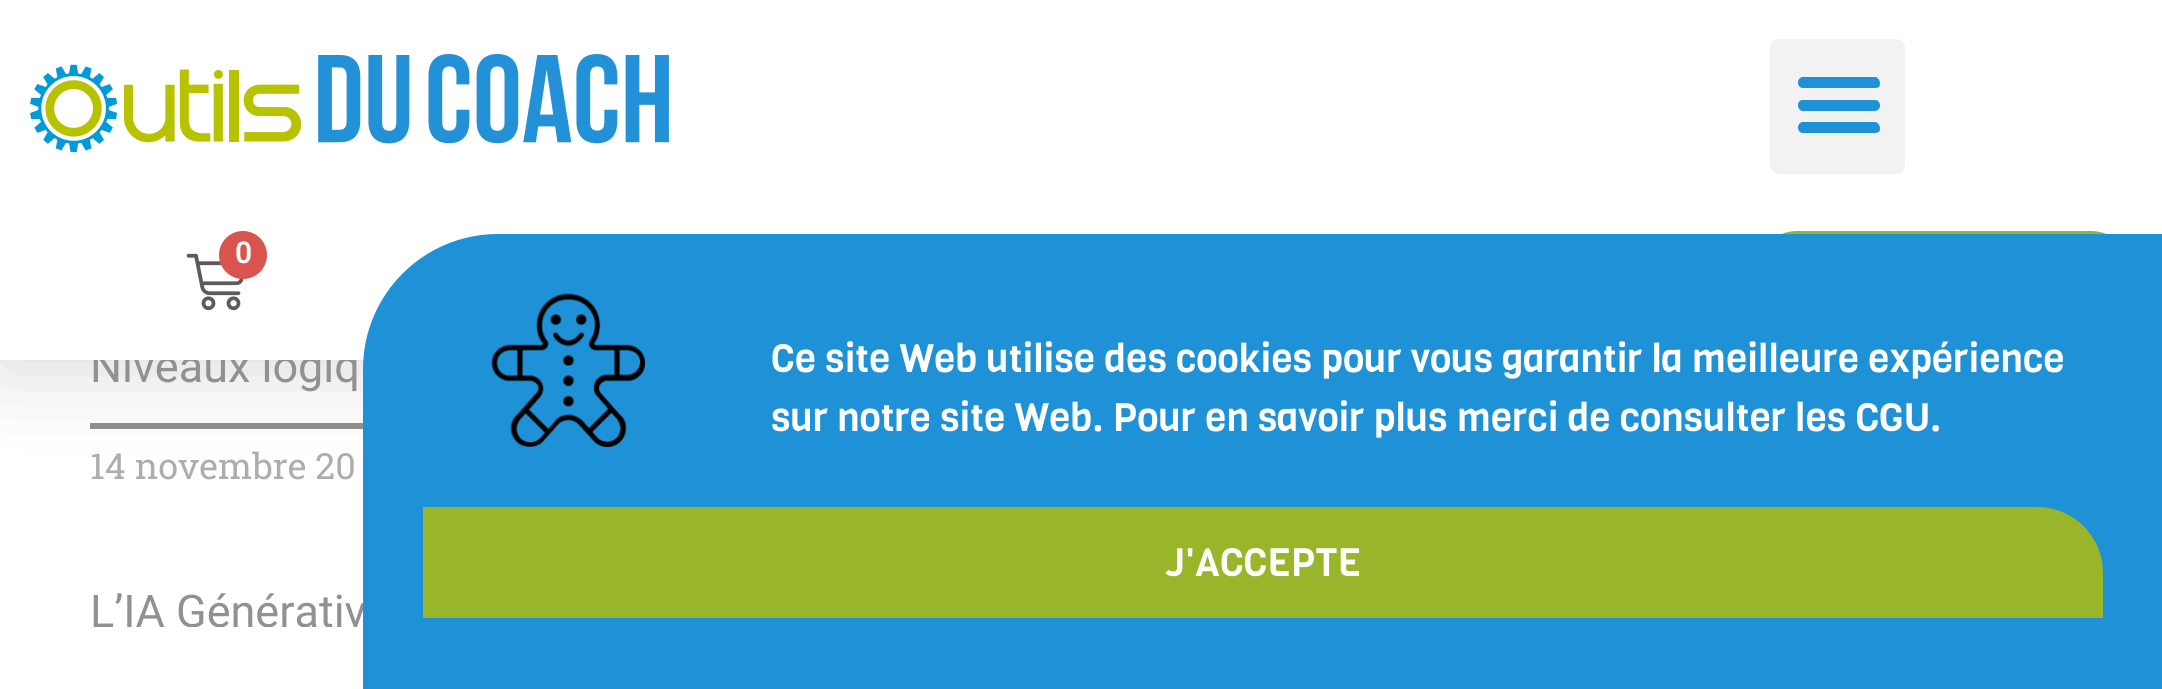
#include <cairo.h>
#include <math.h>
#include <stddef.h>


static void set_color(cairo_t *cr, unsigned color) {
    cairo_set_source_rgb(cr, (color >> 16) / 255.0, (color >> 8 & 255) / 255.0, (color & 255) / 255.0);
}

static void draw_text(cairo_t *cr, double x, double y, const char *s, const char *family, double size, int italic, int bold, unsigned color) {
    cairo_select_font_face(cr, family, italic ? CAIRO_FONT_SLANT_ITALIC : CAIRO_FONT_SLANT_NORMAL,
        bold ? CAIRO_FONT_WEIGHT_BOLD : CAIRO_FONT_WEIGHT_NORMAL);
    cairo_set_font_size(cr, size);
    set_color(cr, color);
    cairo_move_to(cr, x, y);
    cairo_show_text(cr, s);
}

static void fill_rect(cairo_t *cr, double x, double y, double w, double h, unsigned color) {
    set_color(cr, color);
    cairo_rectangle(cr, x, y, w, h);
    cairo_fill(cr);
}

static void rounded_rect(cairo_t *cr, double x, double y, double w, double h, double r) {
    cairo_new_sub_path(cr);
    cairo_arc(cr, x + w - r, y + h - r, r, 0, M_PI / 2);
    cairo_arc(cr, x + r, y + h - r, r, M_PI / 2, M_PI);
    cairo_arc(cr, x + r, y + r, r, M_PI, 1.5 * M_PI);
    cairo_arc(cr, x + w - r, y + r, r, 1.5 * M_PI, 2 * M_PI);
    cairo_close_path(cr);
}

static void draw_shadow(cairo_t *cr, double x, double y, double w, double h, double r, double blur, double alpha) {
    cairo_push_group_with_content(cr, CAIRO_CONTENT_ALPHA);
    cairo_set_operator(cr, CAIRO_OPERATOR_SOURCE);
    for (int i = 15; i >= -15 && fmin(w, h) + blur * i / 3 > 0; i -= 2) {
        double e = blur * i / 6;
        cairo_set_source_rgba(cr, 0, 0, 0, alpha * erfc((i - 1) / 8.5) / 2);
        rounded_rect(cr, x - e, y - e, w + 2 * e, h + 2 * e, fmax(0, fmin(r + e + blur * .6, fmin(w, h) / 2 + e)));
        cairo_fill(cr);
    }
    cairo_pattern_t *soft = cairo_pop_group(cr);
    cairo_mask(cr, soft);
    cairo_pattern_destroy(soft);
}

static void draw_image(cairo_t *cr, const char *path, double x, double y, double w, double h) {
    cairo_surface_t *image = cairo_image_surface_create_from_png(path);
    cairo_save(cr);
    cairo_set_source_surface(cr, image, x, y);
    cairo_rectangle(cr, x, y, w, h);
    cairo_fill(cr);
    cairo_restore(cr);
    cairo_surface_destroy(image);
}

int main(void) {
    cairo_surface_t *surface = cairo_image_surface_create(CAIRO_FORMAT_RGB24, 2162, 689);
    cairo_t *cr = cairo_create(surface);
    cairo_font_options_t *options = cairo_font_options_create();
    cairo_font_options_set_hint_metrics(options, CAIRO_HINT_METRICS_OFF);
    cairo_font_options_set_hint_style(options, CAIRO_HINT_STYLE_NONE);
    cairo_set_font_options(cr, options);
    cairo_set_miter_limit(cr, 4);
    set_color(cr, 0xFFFFFF);
    cairo_paint(cr);
    fill_rect(cr, 90, 423, 273, 6, 0x919191);
    set_color(cr, 0x000000);
    draw_shadow(cr, 0, 9, 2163, 360, 0, 45, 0.15);
    draw_text(cr, 90, 382, "Niveaux logiq", "Roboto", 45, 0, 0, 0x919191);
    fill_rect(cr, 0, 0, 2162, 360, 0xFFFFFF);
    draw_image(cr, "assets/img1.png", 30, 54, 639, 99);
    set_color(cr, 0xF2F2F2);
    rounded_rect(cr, 1770, 39, 135, 135, 9);
    cairo_fill(cr);
    set_color(cr, 0x1F91D7);
    cairo_new_path(cr);
    cairo_move_to(cr, 1803, 88);
    cairo_line_to(cr, 1876, 88);
    cairo_line_to(cr, 1879, 87);
    cairo_curve_to(cr, 1881, 84, 1880, 79, 1876, 77);
    cairo_line_to(cr, 1802, 77);
    cairo_curve_to(cr, 1796, 79, 1797, 88, 1803, 88);
    cairo_close_path(cr);
    cairo_move_to(cr, 1803, 111);
    cairo_line_to(cr, 1876, 111);
    cairo_line_to(cr, 1879, 109);
    cairo_curve_to(cr, 1881, 106, 1880, 101, 1876, 100);
    cairo_line_to(cr, 1802, 100);
    cairo_curve_to(cr, 1796, 101, 1797, 111, 1803, 111);
    cairo_close_path(cr);
    cairo_move_to(cr, 1803, 133);
    cairo_line_to(cr, 1876, 133);
    cairo_line_to(cr, 1879, 132);
    cairo_curve_to(cr, 1881, 129, 1880, 124, 1876, 122);
    cairo_line_to(cr, 1802, 122);
    cairo_curve_to(cr, 1796, 124, 1797, 133, 1803, 133);
    cairo_close_path(cr);
    cairo_fill(cr);
    draw_image(cr, "assets/img2.png", 186, 253, 58, 58);
    set_color(cr, 0xD9534F);
    cairo_arc(cr, 243, 255, 24, 0, 2 * M_PI);
    cairo_fill(cr);
    draw_text(cr, 235, 263, "0", "Roboto SemiBold", 30, 0, 0, 0xFFFFFF);
    set_color(cr, 0x99B529);
    rounded_rect(cr, 1755, 231, 378, 84, 42);
    cairo_fill(cr);
    draw_text(cr, 90, 479, "14 novembre 20", "Roboto Slab", 36, 0, 0, 0xADADAD);
    draw_text(cr, 90, 627, "L’IA Générativ", "Roboto", 45, 0, 0, 0x919191);
    set_color(cr, 0x1F91D7);
    cairo_new_path(cr);
    cairo_move_to(cr, 498, 234);
    cairo_line_to(cr, 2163, 234);
    cairo_line_to(cr, 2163, 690);
    cairo_line_to(cr, 363, 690);
    cairo_line_to(cr, 363, 369);
    cairo_curve_to(cr, 363, 294.5, 423.5, 234, 498, 234);
    cairo_close_path(cr);
    cairo_fill(cr);
    draw_image(cr, "assets/img3.png", 491, 293, 154, 154);
    draw_text(cr, 771, 372, "Ce site Web utilise des cookies pour vous garantir la meilleure expérience", "Viga", 39, 0, 0, 0xFFFFFF);
    draw_text(cr, 771, 431, "sur notre site Web. Pour en savoir plus merci de consulter les CGU.", "Viga", 39, 0, 0, 0xFFFFFF);
    set_color(cr, 0x99B529);
    cairo_new_path(cr);
    cairo_move_to(cr, 423, 507);
    cairo_line_to(cr, 2037, 507);
    cairo_curve_to(cr, 2073.5, 507, 2103, 536.5, 2103, 573);
    cairo_line_to(cr, 2103, 618);
    cairo_line_to(cr, 423, 618);
    cairo_close_path(cr);
    cairo_fill(cr);
    draw_text(cr, 1165, 576, "J'ACCEPTE", "Viga", 39, 0, 0, 0xFFFFFF);
    fill_rect(cr, 189, 627, 143, 1, 0xFFFFFF);
    cairo_surface_write_to_png(surface, "output.png");
    cairo_font_options_destroy(options);
    cairo_destroy(cr);
    cairo_surface_destroy(surface);
    return 0;
}
